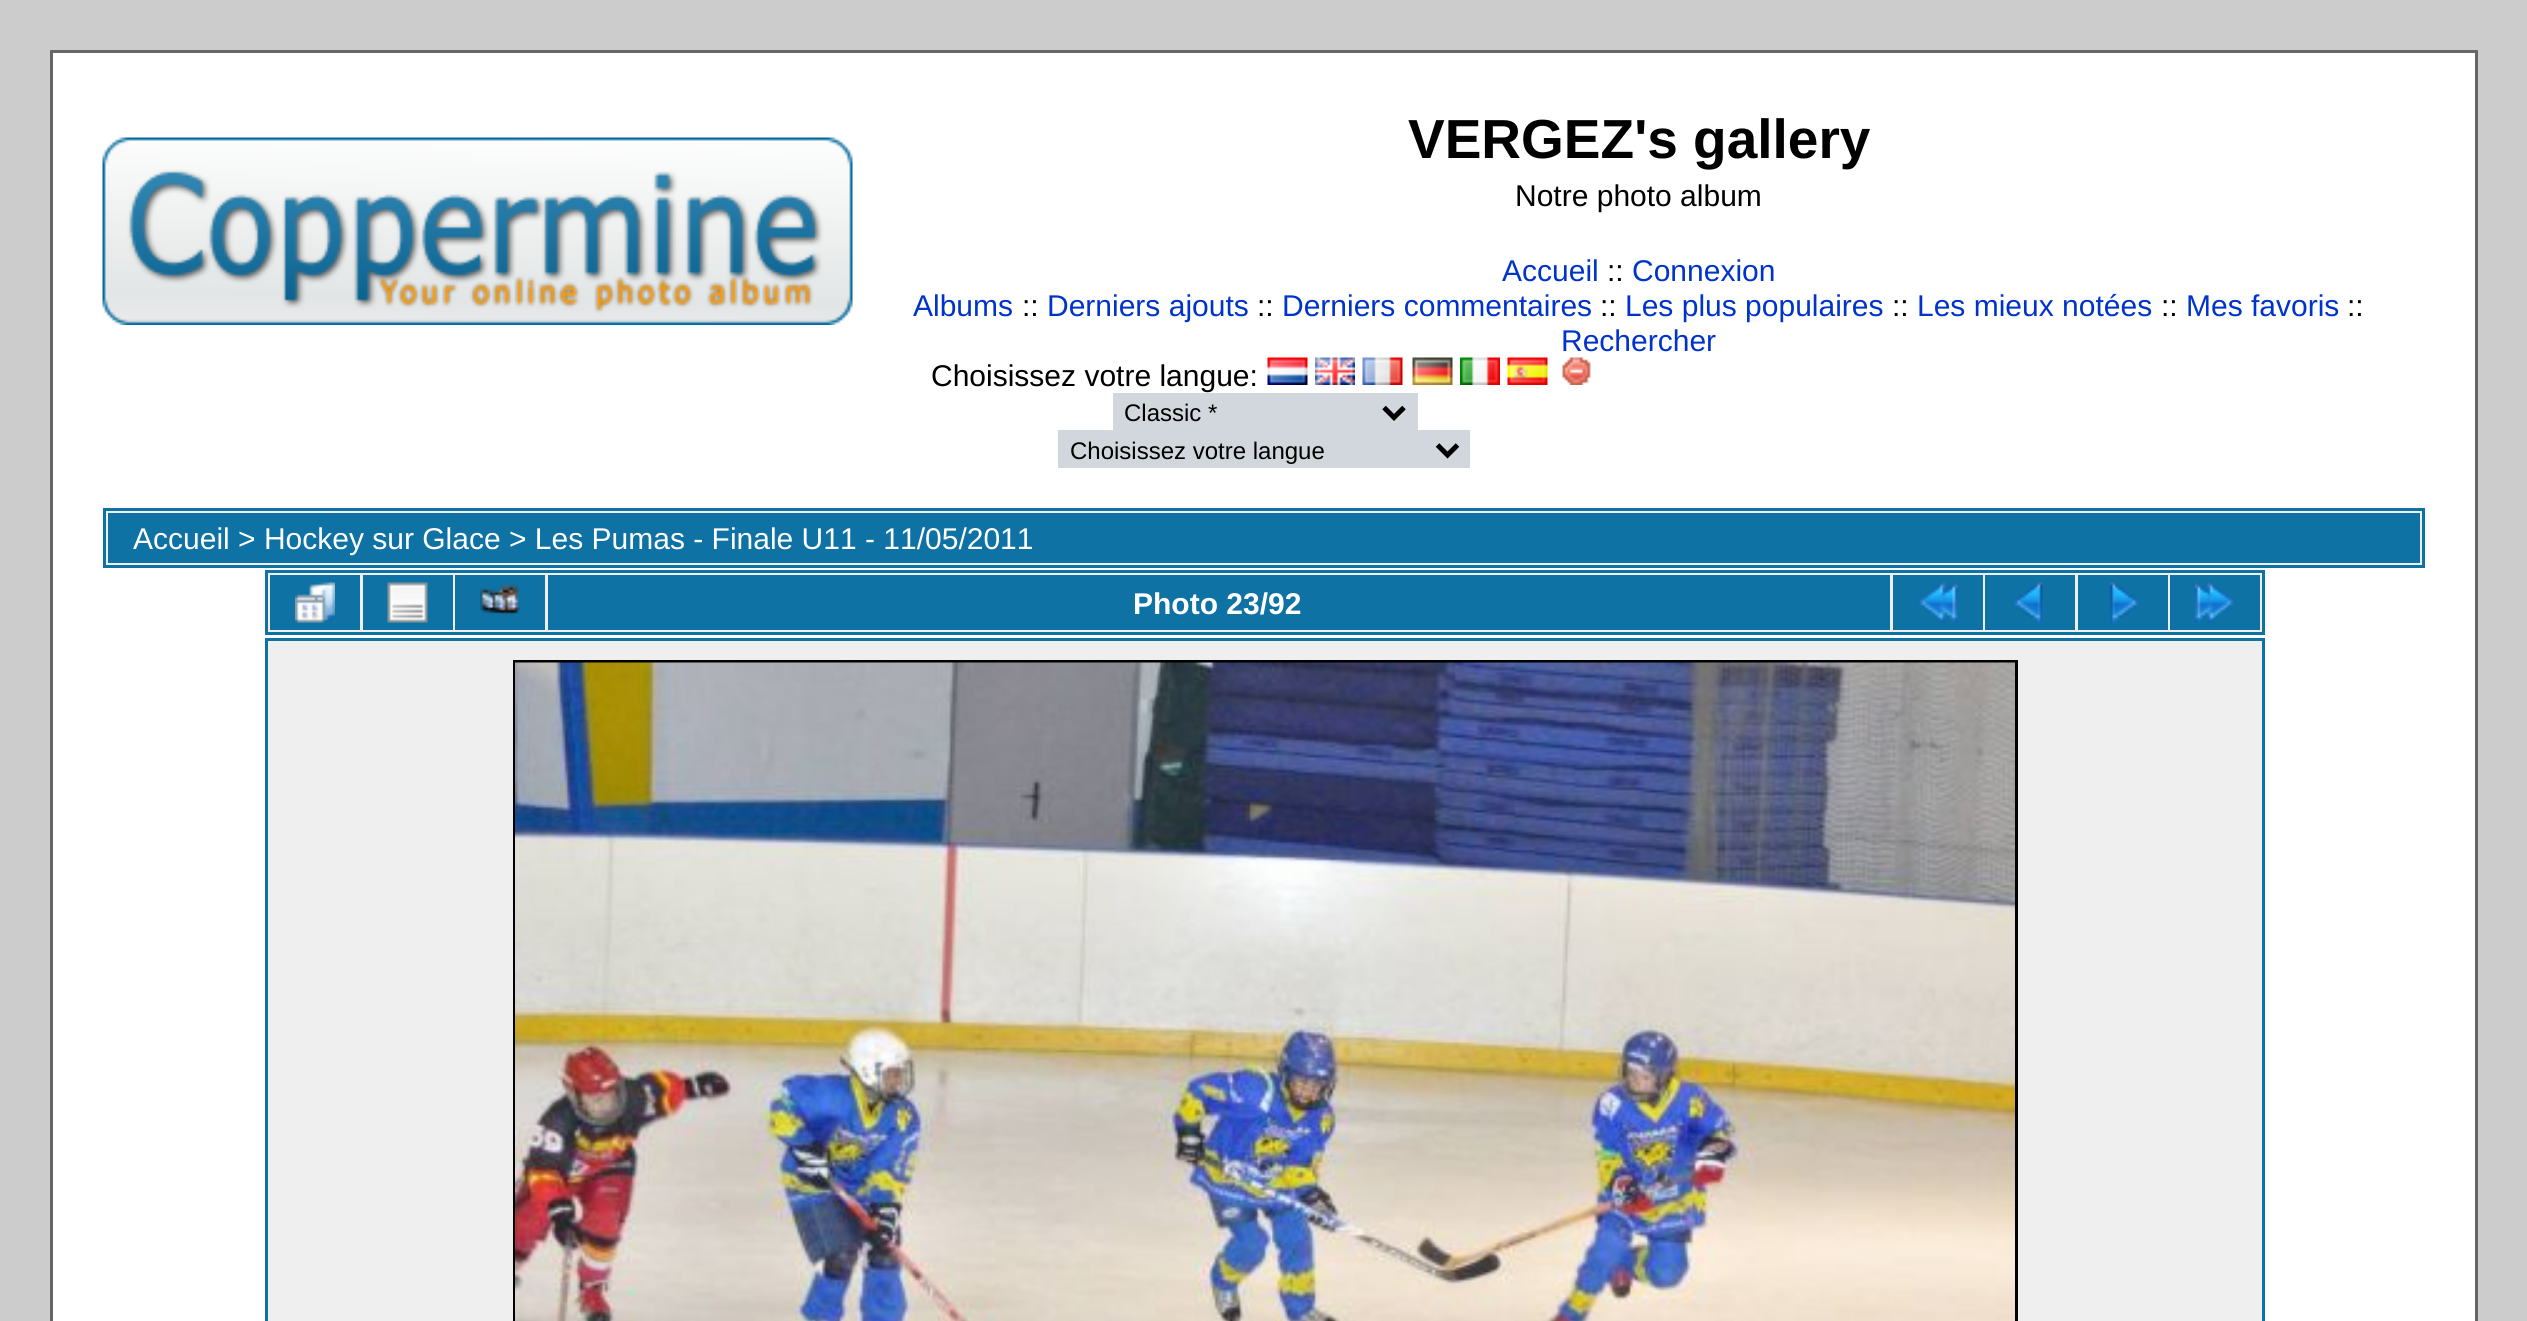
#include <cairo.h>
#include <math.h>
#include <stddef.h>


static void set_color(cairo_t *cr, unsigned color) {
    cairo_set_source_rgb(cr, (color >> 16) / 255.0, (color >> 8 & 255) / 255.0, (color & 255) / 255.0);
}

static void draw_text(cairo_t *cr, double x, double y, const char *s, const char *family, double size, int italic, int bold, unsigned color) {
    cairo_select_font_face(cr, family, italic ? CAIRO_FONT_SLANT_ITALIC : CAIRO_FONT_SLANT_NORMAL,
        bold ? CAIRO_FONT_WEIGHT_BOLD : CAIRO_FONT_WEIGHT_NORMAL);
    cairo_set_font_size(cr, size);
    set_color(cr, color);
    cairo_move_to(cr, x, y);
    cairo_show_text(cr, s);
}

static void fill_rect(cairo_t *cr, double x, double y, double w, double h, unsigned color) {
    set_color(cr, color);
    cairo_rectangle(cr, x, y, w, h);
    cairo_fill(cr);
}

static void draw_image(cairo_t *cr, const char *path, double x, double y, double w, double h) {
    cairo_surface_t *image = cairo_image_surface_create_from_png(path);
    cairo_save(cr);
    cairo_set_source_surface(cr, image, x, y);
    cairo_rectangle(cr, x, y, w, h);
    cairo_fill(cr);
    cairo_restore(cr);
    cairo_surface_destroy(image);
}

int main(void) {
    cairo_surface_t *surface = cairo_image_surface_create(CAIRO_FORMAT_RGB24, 2527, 1321);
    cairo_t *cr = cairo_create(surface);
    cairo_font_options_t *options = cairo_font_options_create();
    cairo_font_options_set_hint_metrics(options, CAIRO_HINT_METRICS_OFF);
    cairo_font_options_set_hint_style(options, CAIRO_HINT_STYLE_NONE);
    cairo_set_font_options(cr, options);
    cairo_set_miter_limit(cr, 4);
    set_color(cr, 0xCCCCCC);
    cairo_paint(cr);
    set_color(cr, 0xFFFFFF);
    cairo_rectangle(cr, 51.5, 51.5, 2425, 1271);
    cairo_fill_preserve(cr);
    set_color(cr, 0x666666);
    cairo_set_line_width(cr, 3);
    cairo_stroke(cr);
    draw_image(cr, "assets/img1.png", 102, 137, 751, 188);
    draw_text(cr, 1408, 158, "VERGEZ's gallery", "Liberation Sans", 55, 0, 1, 0x000000);
    draw_text(cr, 1515, 206, "Notre photo album", "Liberation Sans", 30, 0, 0, 0x000000);
    draw_text(cr, 1502, 281, "Accueil", "Liberation Sans", 30, 0, 0, 0x0033CC);
    draw_text(cr, 1607, 281, "::", "Liberation Sans", 30, 0, 0, 0x000000);
    draw_text(cr, 1632, 281, "Connexion", "Liberation Sans", 30, 0, 0, 0x0033CC);
    draw_text(cr, 913, 316, "Albums", "Liberation Sans", 30, 0, 0, 0x0033CC);
    draw_text(cr, 1022, 316, "::", "Liberation Sans", 30, 0, 0, 0x000000);
    draw_text(cr, 1047, 316, "Derniers ajouts", "Liberation Sans", 30, 0, 0, 0x0033CC);
    draw_text(cr, 1257, 316, "::", "Liberation Sans", 30, 0, 0, 0x000000);
    draw_text(cr, 1282, 316, "Derniers commentaires", "Liberation Sans", 30, 0, 0, 0x0033CC);
    draw_text(cr, 1600, 316, "::", "Liberation Sans", 30, 0, 0, 0x000000);
    draw_text(cr, 1625, 316, "Les plus populaires", "Liberation Sans", 30, 0, 0, 0x0033CC);
    draw_text(cr, 1892, 316, "::", "Liberation Sans", 30, 0, 0, 0x000000);
    draw_text(cr, 1917, 316, "Les mieux notées", "Liberation Sans", 30, 0, 0, 0x0033CC);
    draw_text(cr, 2161, 316, "::", "Liberation Sans", 30, 0, 0, 0x000000);
    draw_text(cr, 2186, 316, "Mes favoris", "Liberation Sans", 30, 0, 0, 0x0033CC);
    draw_text(cr, 2347, 316, "::", "Liberation Sans", 30, 0, 0, 0x000000);
    draw_text(cr, 1561, 351, "Rechercher", "Liberation Sans", 30, 0, 0, 0x0033CC);
    draw_text(cr, 931, 386, "Choisissez votre langue:", "Liberation Sans", 30, 0, 0, 0x000000);
    draw_image(cr, "assets/img2.png", 1267, 357, 41, 28);
    draw_image(cr, "assets/img3.png", 1315, 357, 40, 28);
    draw_image(cr, "assets/img4.png", 1362, 357, 41, 28);
    draw_image(cr, "assets/img5.png", 1412, 357, 41, 28);
    draw_image(cr, "assets/img6.png", 1460, 357, 40, 28);
    draw_image(cr, "assets/img7.png", 1507, 357, 41, 28);
    draw_image(cr, "assets/img8.png", 1561, 357, 30, 28);
    fill_rect(cr, 1113, 393, 305, 37, 0xD1D7DC);
    cairo_new_path(cr);
    cairo_move_to(cr, 1384, 407.5);
    cairo_line_to(cr, 1394, 417.5);
    cairo_line_to(cr, 1404, 407.5);
    set_color(cr, 0x000000);
    cairo_set_line_width(cr, 5);
    cairo_stroke(cr);
    draw_text(cr, 1124, 421, "Classic *", "Liberation Sans", 24, 0, 0, 0x000000);
    fill_rect(cr, 1058, 430, 412, 38, 0xD1D7DC);
    cairo_new_path(cr);
    cairo_move_to(cr, 1437.5, 445);
    cairo_line_to(cr, 1447.5, 455);
    cairo_line_to(cr, 1457.5, 445);
    set_color(cr, 0x000000);
    cairo_stroke(cr);
    draw_text(cr, 1070, 459, "Choisissez votre langue", "Liberation Sans", 24, 0, 0, 0x000000);
    set_color(cr, 0xEFEFEF);
    cairo_rectangle(cr, 104.5, 509.5, 2319, 57);
    cairo_fill_preserve(cr);
    set_color(cr, 0x0E72A4);
    cairo_set_line_width(cr, 3);
    cairo_stroke(cr);
    fill_rect(cr, 108, 513, 2312, 50, 0x0E72A4);
    draw_text(cr, 133, 549, "Accueil > Hockey sur Glace > Les Pumas - Finale U11 - 11/05/2011", "Liberation Sans", 30, 0, 0, 0xFFFFFF);
    set_color(cr, 0xEFEFEF);
    cairo_rectangle(cr, 266.5, 571.5, 1997, 62);
    cairo_fill_preserve(cr);
    set_color(cr, 0x0E72A4);
    cairo_stroke(cr);
    fill_rect(cr, 270, 575, 90, 55, 0x0E72A4);
    draw_image(cr, "assets/img9.png", 295, 582, 40, 41);
    fill_rect(cr, 363, 575, 90, 55, 0x0E72A4);
    draw_image(cr, "assets/img10.png", 387, 582, 41, 41);
    fill_rect(cr, 455, 575, 90, 55, 0x0E72A4);
    draw_image(cr, "assets/img11.png", 480, 584, 40, 31);
    fill_rect(cr, 548, 575, 1342, 55, 0x0E72A4);
    draw_text(cr, 1133, 614, "Photo 23/92", "Liberation Sans", 30, 0, 1, 0xFFFFFF);
    fill_rect(cr, 1893, 575, 90, 55, 0x0E72A4);
    draw_image(cr, "assets/img12.png", 1917, 582, 41, 41);
    fill_rect(cr, 1985, 575, 90, 55, 0x0E72A4);
    draw_image(cr, "assets/img13.png", 2012, 582, 31, 41);
    fill_rect(cr, 2078, 575, 90, 55, 0x0E72A4);
    draw_image(cr, "assets/img14.png", 2109, 582, 31, 41);
    fill_rect(cr, 2170, 575, 90, 55, 0x0E72A4);
    draw_image(cr, "assets/img15.png", 2195, 582, 40, 41);
    set_color(cr, 0xEFEFEF);
    cairo_rectangle(cr, 266.5, 639.5, 1997, 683);
    cairo_fill_preserve(cr);
    set_color(cr, 0x0E72A4);
    cairo_stroke(cr);
    cairo_rectangle(cr, 514.5, 661.5, 1502, 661);
    set_color(cr, 0x000000);
    cairo_stroke(cr);
    draw_image(cr, "assets/img16.png", 515, 662, 1500, 659);
    cairo_surface_write_to_png(surface, "output.png");
    cairo_font_options_destroy(options);
    cairo_destroy(cr);
    cairo_surface_destroy(surface);
    return 0;
}
